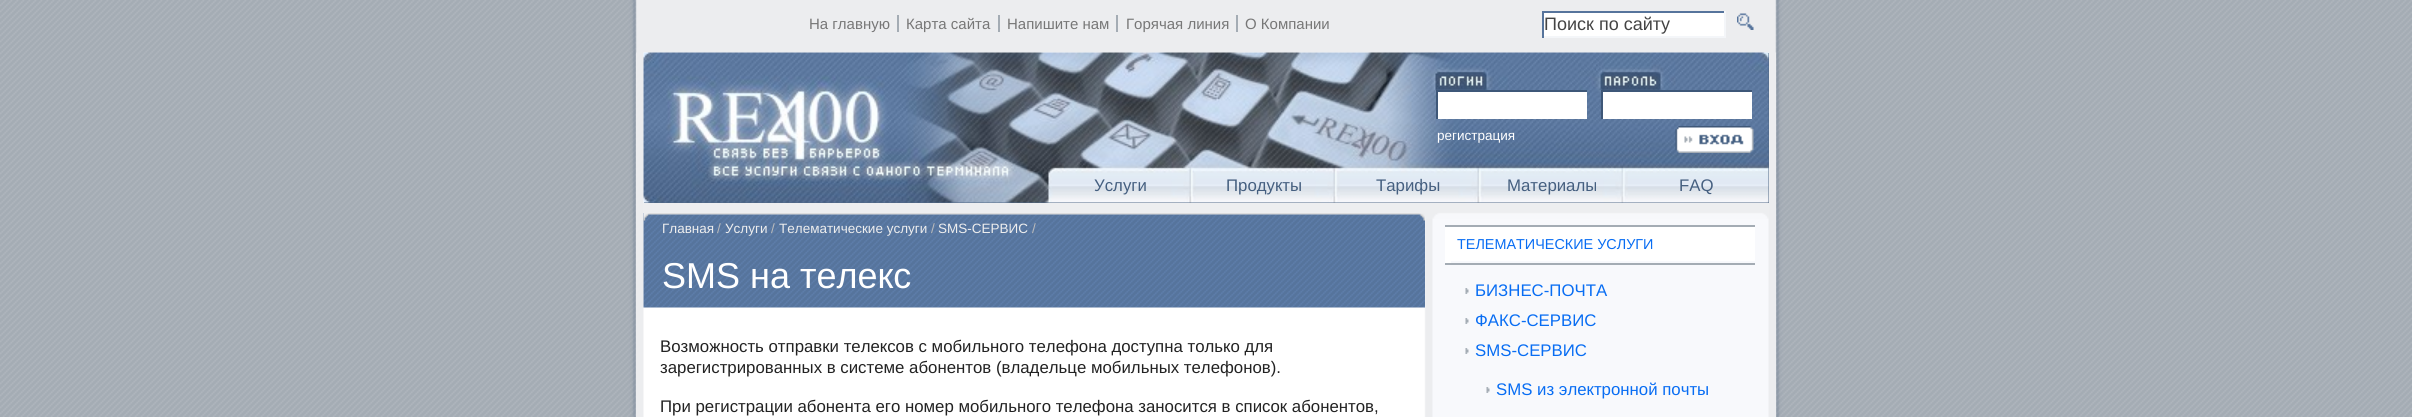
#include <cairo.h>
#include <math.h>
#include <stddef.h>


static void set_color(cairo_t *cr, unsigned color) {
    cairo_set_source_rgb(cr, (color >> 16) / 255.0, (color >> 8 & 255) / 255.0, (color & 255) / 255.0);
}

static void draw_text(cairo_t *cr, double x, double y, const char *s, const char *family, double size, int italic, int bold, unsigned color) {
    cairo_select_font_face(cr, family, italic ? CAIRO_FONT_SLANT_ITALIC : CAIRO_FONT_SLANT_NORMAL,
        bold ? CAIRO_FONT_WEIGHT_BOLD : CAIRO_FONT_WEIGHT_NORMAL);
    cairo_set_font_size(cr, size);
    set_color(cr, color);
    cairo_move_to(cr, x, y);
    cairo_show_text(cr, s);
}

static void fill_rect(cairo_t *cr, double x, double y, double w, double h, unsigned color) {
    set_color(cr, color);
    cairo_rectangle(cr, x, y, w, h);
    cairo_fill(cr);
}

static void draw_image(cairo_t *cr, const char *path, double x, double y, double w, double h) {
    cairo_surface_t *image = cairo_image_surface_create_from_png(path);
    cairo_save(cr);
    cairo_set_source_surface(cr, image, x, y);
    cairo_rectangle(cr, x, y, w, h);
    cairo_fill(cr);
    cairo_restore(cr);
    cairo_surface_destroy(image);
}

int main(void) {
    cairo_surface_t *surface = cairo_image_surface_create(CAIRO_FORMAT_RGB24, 2412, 417);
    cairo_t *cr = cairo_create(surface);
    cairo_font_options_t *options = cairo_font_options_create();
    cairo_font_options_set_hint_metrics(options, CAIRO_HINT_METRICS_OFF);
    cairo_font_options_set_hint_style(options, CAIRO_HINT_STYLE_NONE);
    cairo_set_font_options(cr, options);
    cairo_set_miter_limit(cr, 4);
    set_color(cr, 0xFFFFFF);
    cairo_paint(cr);
    draw_image(cr, "assets/img1.png", 0, 0, 2412, 417);
    draw_image(cr, "assets/img2.png", 636, 52, 1140, 365);
    draw_image(cr, "assets/img3.png", 643, 202, 1126, 17);
    draw_text(cr, 809, 29, "На главную", "Liberation Sans", 15, 0, 0, 0x777777);
    fill_rect(cr, 897, 15, 2, 17, 0xA4ACB4);
    draw_text(cr, 906, 29, "Карта сайта", "Liberation Sans", 15, 0, 0, 0x777777);
    fill_rect(cr, 998, 15, 2, 17, 0xA4ACB4);
    draw_text(cr, 1007, 29, "Напишите нам", "Liberation Sans", 15, 0, 0, 0x777777);
    fill_rect(cr, 1116, 15, 2, 17, 0xA4ACB4);
    draw_text(cr, 1126, 29, "Горячая линия", "Liberation Sans", 15, 0, 0, 0x777777);
    fill_rect(cr, 1236, 15, 2, 17, 0xA4ACB4);
    draw_text(cr, 1245, 29, "О Компании", "Liberation Sans", 15, 0, 0, 0x777777);
    fill_rect(cr, 1544, 13, 180, 23, 0xFFFFFF);
    fill_rect(cr, 1542, 11, 183, 2, 0x56749C);
    fill_rect(cr, 1724, 11, 2, 27, 0xF4F6F9);
    fill_rect(cr, 1542, 36, 183, 2, 0xF4F6F9);
    fill_rect(cr, 1542, 11, 2, 27, 0x56749C);
    draw_text(cr, 1544, 30, "Поиск по сайту", "Liberation Sans", 18, 0, 0, 0x444444);
    draw_image(cr, "assets/img4.png", 1737, 13, 17, 17);
    draw_image(cr, "assets/img5.png", 643, 213, 782, 95);
    draw_image(cr, "assets/img6.png", 643, 213, 782, 8);
    draw_text(cr, 662, 233, "Главная", "Liberation Sans", 13.5, 0, 0, 0xEEEEEE);
    draw_text(cr, 717, 233, "/", "Liberation Sans", 13.5, 0, 0, 0xBBBBBB);
    draw_text(cr, 725, 233, "Услуги", "Liberation Sans", 13.5, 0, 0, 0xEEEEEE);
    draw_text(cr, 771, 233, "/", "Liberation Sans", 13.5, 0, 0, 0xBBBBBB);
    draw_text(cr, 779, 233, "Телематические услуги", "Liberation Sans", 13.5, 0, 0, 0xEEEEEE);
    draw_text(cr, 931, 233, "/", "Liberation Sans", 13.5, 0, 0, 0xBBBBBB);
    draw_text(cr, 938, 233, "SMS-СЕРВИС", "Liberation Sans", 13.5, 0, 0, 0xEEEEEE);
    draw_text(cr, 1032, 233, "/", "Liberation Sans", 13.5, 0, 0, 0xBBBBBB);
    draw_text(cr, 662, 288, "SMS на телекс", "Liberation Sans", 36, 0, 0, 0xFFFFFF);
    draw_text(cr, 660, 352, "Возможность отправки телексов с мобильного телефона доступна только для", "Liberation Sans", 16.8, 0, 0, 0x222222);
    draw_text(cr, 660, 373, "зарегистрированных в системе абонентов (владельце мобильных телефонов).", "Liberation Sans", 16.8, 0, 0, 0x222222);
    draw_text(cr, 660, 412, "При регистрации абонента его номер мобильного телефона заносится в список абонентов,", "Liberation Sans", 16.8, 0, 0, 0x222222);
    fill_rect(cr, 1445, 227, 310, 36, 0xFFFFFF);
    fill_rect(cr, 1445, 225, 310, 2, 0xA4ACB4);
    fill_rect(cr, 1445, 263, 310, 2, 0xA4ACB4);
    fill_rect(cr, 1451, 261, 304, 2, 0xF8F9FC);
    draw_text(cr, 1457, 249, "ТЕЛЕМАТИЧЕСКИЕ УСЛУГИ", "Liberation Sans", 14.4, 0, 0, 0x086DF3);
    draw_image(cr, "assets/img7.png", 1465, 288, 4, 6);
    draw_text(cr, 1475, 296, "БИЗНЕС-ПОЧТА", "Liberation Sans", 16.8, 0, 0, 0x086DF3);
    draw_image(cr, "assets/img7.png", 1465, 318, 4, 6);
    draw_text(cr, 1475, 326, "ФАКС-СЕРВИС", "Liberation Sans", 16.8, 0, 0, 0x086DF3);
    draw_image(cr, "assets/img7.png", 1465, 348, 4, 6);
    draw_text(cr, 1475, 356, "SMS-СЕРВИС", "Liberation Sans", 16.8, 0, 0, 0x086DF3);
    draw_image(cr, "assets/img7.png", 1486, 387, 4, 6);
    draw_text(cr, 1496, 395, "SMS из электронной почты", "Liberation Sans", 16.8, 0, 0, 0x086DF3);
    fill_rect(cr, 644, 53, 1125, 150, 0x506886);
    draw_image(cr, "assets/img8.png", 643, 52, 1126, 151);
    fill_rect(cr, 1438, 92, 149, 27, 0xFFFFFF);
    fill_rect(cr, 1436, 90, 151, 2, 0x3E5778);
    fill_rect(cr, 1436, 90, 2, 29, 0x3E5778);
    fill_rect(cr, 1603, 92, 149, 27, 0xFFFFFF);
    fill_rect(cr, 1601, 90, 151, 2, 0x3E5778);
    fill_rect(cr, 1601, 90, 2, 29, 0x3E5778);
    draw_image(cr, "assets/img9.png", 1675, 126, 79, 27);
    draw_text(cr, 1437, 140, "регистрация", "Liberation Sans", 13.5, 0, 0, 0xFFFFFF);
    draw_text(cr, 1094, 191, "Услуги", "Liberation Sans", 16.8, 0, 0, 0x455F80);
    draw_text(cr, 1226, 191, "Продукты", "Liberation Sans", 16.8, 0, 0, 0x455F80);
    draw_text(cr, 1376, 191, "Тарифы", "Liberation Sans", 16.8, 0, 0, 0x455F80);
    draw_text(cr, 1507, 191, "Материалы", "Liberation Sans", 16.8, 0, 0, 0x455F80);
    draw_text(cr, 1679, 191, "FAQ", "Liberation Sans", 16.8, 0, 0, 0x455F80);
    cairo_surface_write_to_png(surface, "output.png");
    cairo_font_options_destroy(options);
    cairo_destroy(cr);
    cairo_surface_destroy(surface);
    return 0;
}
